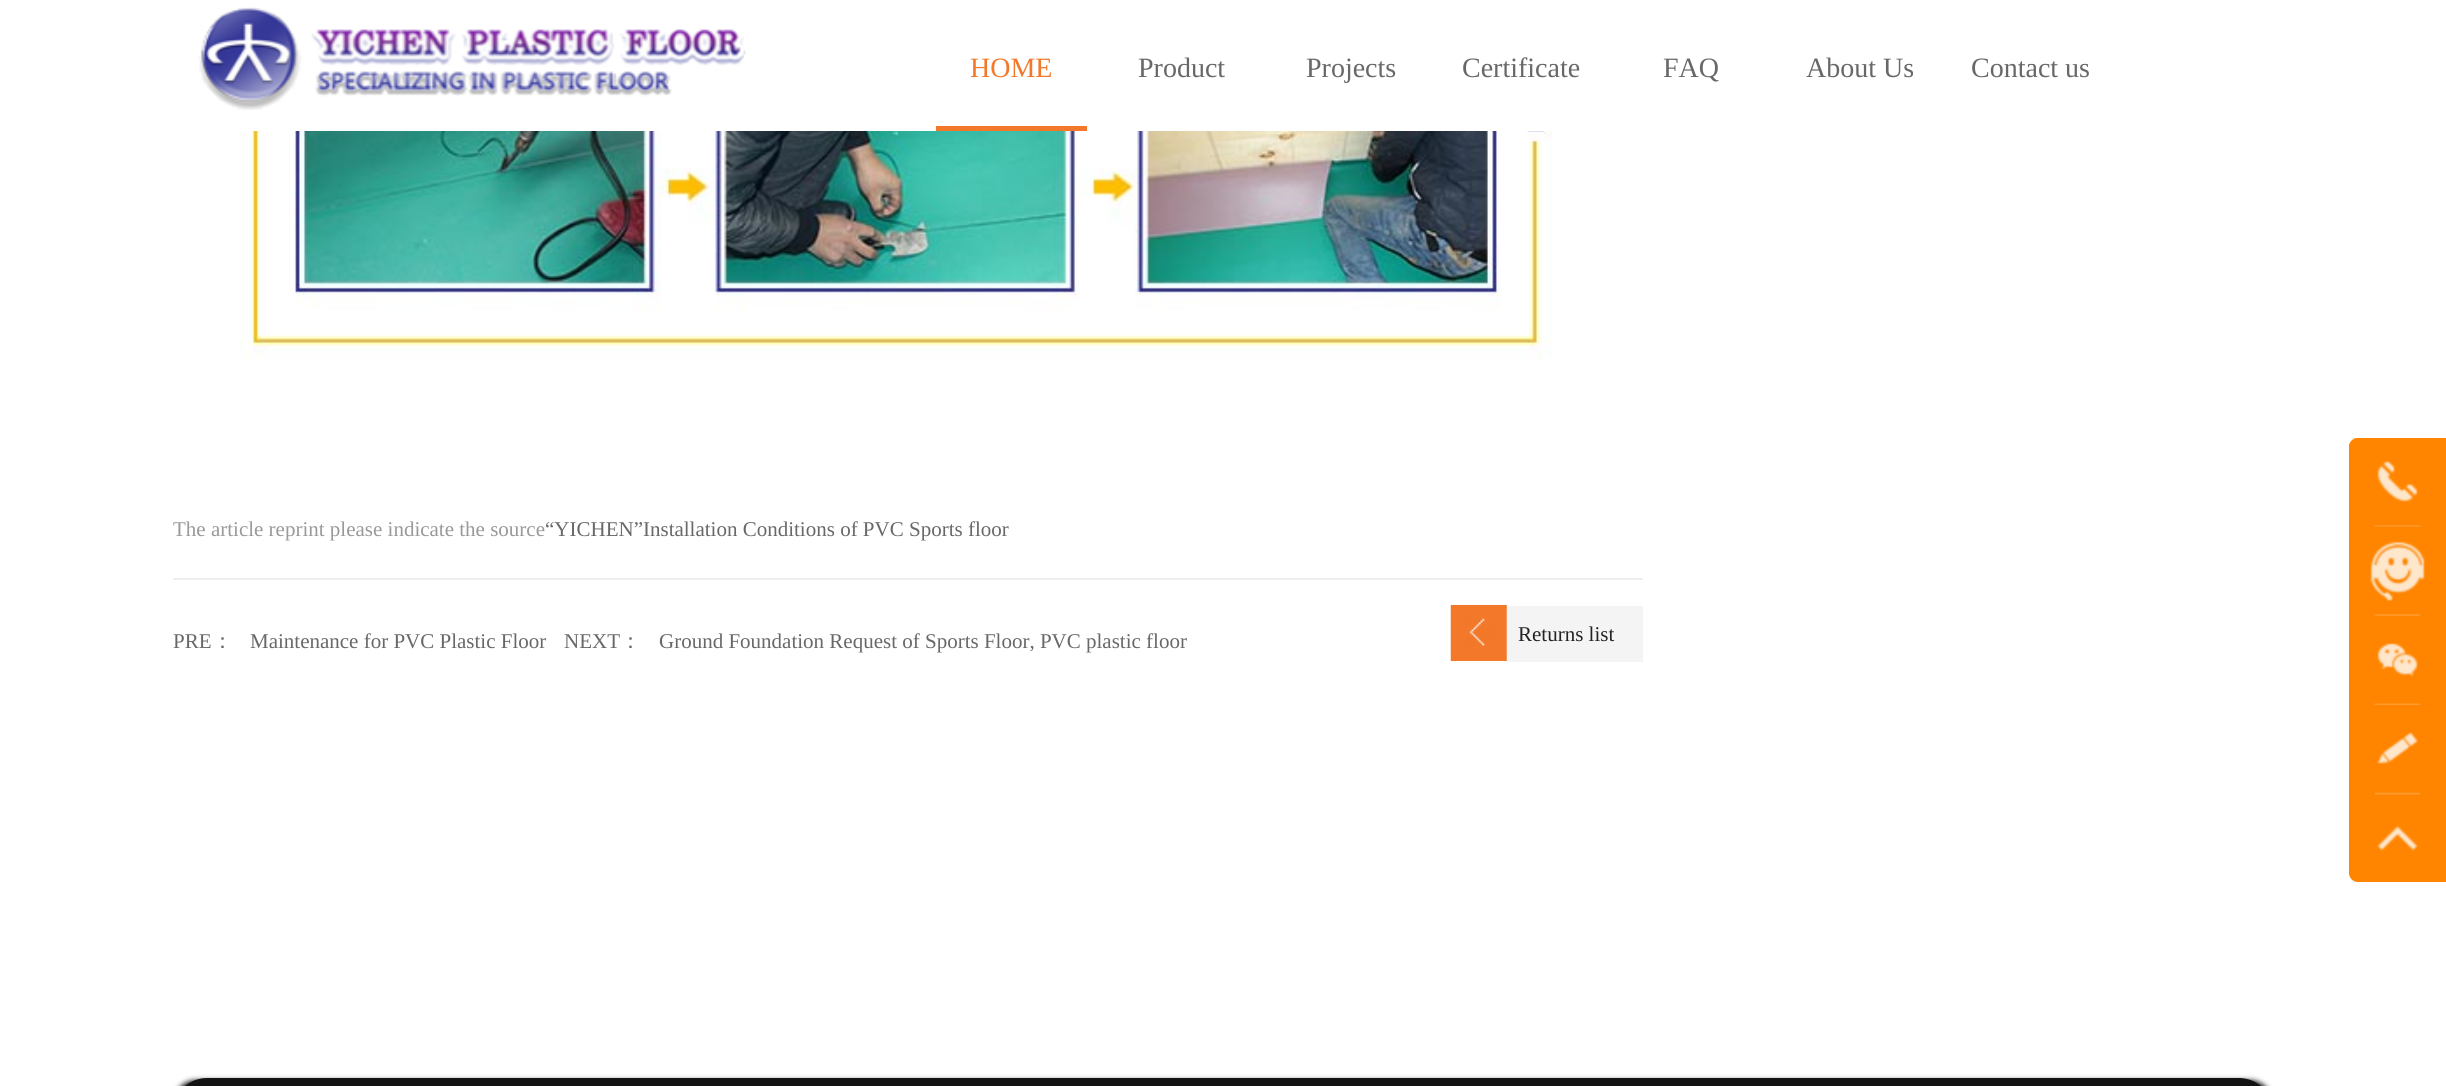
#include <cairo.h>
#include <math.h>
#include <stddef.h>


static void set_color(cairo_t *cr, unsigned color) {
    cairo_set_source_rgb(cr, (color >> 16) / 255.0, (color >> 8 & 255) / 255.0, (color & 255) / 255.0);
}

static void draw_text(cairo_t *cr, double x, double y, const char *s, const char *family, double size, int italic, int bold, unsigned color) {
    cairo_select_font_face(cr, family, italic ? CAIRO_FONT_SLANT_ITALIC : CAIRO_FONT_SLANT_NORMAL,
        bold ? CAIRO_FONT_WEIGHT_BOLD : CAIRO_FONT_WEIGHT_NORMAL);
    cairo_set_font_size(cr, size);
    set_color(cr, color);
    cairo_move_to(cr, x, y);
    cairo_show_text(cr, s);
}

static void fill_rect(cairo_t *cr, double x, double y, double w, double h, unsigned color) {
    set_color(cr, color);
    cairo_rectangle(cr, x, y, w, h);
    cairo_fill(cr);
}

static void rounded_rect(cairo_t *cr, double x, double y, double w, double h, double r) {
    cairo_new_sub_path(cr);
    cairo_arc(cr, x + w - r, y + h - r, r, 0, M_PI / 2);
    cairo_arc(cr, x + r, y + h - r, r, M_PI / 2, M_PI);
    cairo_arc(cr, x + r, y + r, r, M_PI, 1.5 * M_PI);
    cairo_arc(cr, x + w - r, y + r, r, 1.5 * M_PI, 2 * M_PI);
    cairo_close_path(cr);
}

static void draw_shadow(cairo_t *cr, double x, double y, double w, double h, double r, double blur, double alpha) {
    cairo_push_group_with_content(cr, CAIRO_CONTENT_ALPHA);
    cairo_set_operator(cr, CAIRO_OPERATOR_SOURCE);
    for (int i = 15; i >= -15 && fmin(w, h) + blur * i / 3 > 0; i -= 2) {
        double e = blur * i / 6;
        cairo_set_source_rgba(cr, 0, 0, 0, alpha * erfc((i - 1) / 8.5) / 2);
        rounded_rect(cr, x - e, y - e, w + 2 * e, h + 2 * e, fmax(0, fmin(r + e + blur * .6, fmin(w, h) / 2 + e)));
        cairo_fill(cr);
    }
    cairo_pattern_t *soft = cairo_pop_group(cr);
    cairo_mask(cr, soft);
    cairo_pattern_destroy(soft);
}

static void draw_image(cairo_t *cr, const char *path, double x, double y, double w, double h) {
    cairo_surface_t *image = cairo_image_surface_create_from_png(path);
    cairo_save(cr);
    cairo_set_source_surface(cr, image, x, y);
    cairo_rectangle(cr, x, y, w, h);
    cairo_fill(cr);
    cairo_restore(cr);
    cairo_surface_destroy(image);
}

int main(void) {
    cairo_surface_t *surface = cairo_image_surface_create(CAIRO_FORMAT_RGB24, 2446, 1086);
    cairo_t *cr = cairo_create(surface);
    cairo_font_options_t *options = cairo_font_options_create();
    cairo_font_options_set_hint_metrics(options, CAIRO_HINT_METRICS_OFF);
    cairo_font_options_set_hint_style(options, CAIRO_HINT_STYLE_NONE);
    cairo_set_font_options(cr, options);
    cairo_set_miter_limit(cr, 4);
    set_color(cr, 0xFFFFFF);
    cairo_paint(cr);
    draw_image(cr, "assets/img1.png", 198, 7, 548, 103);
    fill_rect(cr, 936, 126, 151, 5, 0xF3782A);
    draw_text(cr, 970, 77, "HOME", "Liberation Serif", 28, 0, 0, 0xF3782A);
    draw_text(cr, 1138, 77, "Product", "Liberation Serif", 28, 0, 0, 0x686868);
    draw_text(cr, 1306, 77, "Projects", "Liberation Serif", 28, 0, 0, 0x686868);
    draw_text(cr, 1462, 77, "Certificate", "Liberation Serif", 28, 0, 0, 0x686868);
    draw_text(cr, 1663, 77, "FAQ", "Liberation Serif", 28, 0, 0, 0x686868);
    draw_text(cr, 1806, 77, "About Us", "Liberation Serif", 28, 0, 0, 0x686868);
    draw_text(cr, 1971, 77, "Contact us", "Liberation Serif", 28, 0, 0, 0x686868);
    draw_image(cr, "assets/img2.png", 240, 131, 1313, 230);
    draw_text(cr, 173, 536, "The article reprint please indicate the source", "Liberation Serif", 21, 0, 0, 0x999999);
    draw_text(cr, 545, 536, "“YICHEN”Installation Conditions of PVC Sports floor", "Liberation Serif", 21, 0, 0, 0x686868);
    fill_rect(cr, 173, 578, 1470, 2, 0xEEEEEE);
    draw_text(cr, 173, 648, "PRE", "Liberation Serif", 21, 0, 0, 0x686868);
    draw_text(cr, 212, 648, "：", "WenQuanYi Zen Hei Medium", 21, 0, 0, 0x686868);
    draw_text(cr, 250, 648, "Maintenance for PVC Plastic Floor", "Liberation Serif", 21, 0, 0, 0x686868);
    draw_text(cr, 564, 648, "NEXT", "Liberation Serif", 21, 0, 0, 0x686868);
    draw_text(cr, 620, 648, "：", "WenQuanYi Zen Hei Medium", 21, 0, 0, 0x686868);
    draw_text(cr, 659, 648, "Ground Foundation Request of Sports Floor, PVC plastic floor", "Liberation Serif", 21, 0, 0, 0x686868);
    draw_image(cr, "assets/img3.png", 1450, 605, 57, 56);
    fill_rect(cr, 1507, 606, 136, 56, 0xF4F4F4);
    draw_text(cr, 1518, 641, "Returns list", "Liberation Serif", 21, 0, 0, 0x232323);
    set_color(cr, 0xFF8500);
    cairo_new_path(cr);
    cairo_move_to(cr, 2358, 438);
    cairo_line_to(cr, 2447, 438);
    cairo_line_to(cr, 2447, 527);
    cairo_line_to(cr, 2349, 527);
    cairo_line_to(cr, 2349, 447);
    cairo_curve_to(cr, 2349, 442, 2353, 438, 2358, 438);
    cairo_close_path(cr);
    cairo_fill(cr);
    draw_image(cr, "assets/img4.png", 2374, 525, 47, 2);
    cairo_new_path(cr);
    cairo_move_to(cr, 2358, 438);
    cairo_line_to(cr, 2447, 438);
    cairo_line_to(cr, 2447, 525);
    cairo_line_to(cr, 2349, 525);
    cairo_line_to(cr, 2349, 447);
    cairo_curve_to(cr, 2349, 442, 2353, 438, 2358, 438);
    cairo_close_path(cr);
    cairo_fill(cr);
    draw_image(cr, "assets/img5.png", 2377, 461, 41, 41);
    fill_rect(cr, 2349, 527, 97, 268, 0xFF8500);
    draw_image(cr, "assets/img6.png", 2374, 614, 47, 2);
    draw_image(cr, "assets/img7.png", 2370, 541, 55, 60);
    draw_image(cr, "assets/img8.png", 2374, 703, 47, 2);
    draw_image(cr, "assets/img9.png", 2377, 643, 41, 34);
    draw_image(cr, "assets/img10.png", 2374, 792, 47, 3);
    draw_image(cr, "assets/img11.png", 2377, 732, 41, 32);
    cairo_new_path(cr);
    cairo_move_to(cr, 2349, 795);
    cairo_line_to(cr, 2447, 795);
    cairo_line_to(cr, 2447, 882);
    cairo_line_to(cr, 2358, 882);
    cairo_curve_to(cr, 2353, 882, 2349, 878, 2349, 873);
    cairo_close_path(cr);
    cairo_fill(cr);
    draw_image(cr, "assets/img12.png", 2377, 825, 41, 26);
    set_color(cr, 0x272727);
    draw_shadow(cr, 173, 1080, 2100, 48, 34, 2.5, 1);
    set_color(cr, 0x131313);
    rounded_rect(cr, 173, 1078, 2100, 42, 34);
    cairo_fill(cr);
    cairo_surface_write_to_png(surface, "output.png");
    cairo_font_options_destroy(options);
    cairo_destroy(cr);
    cairo_surface_destroy(surface);
    return 0;
}
